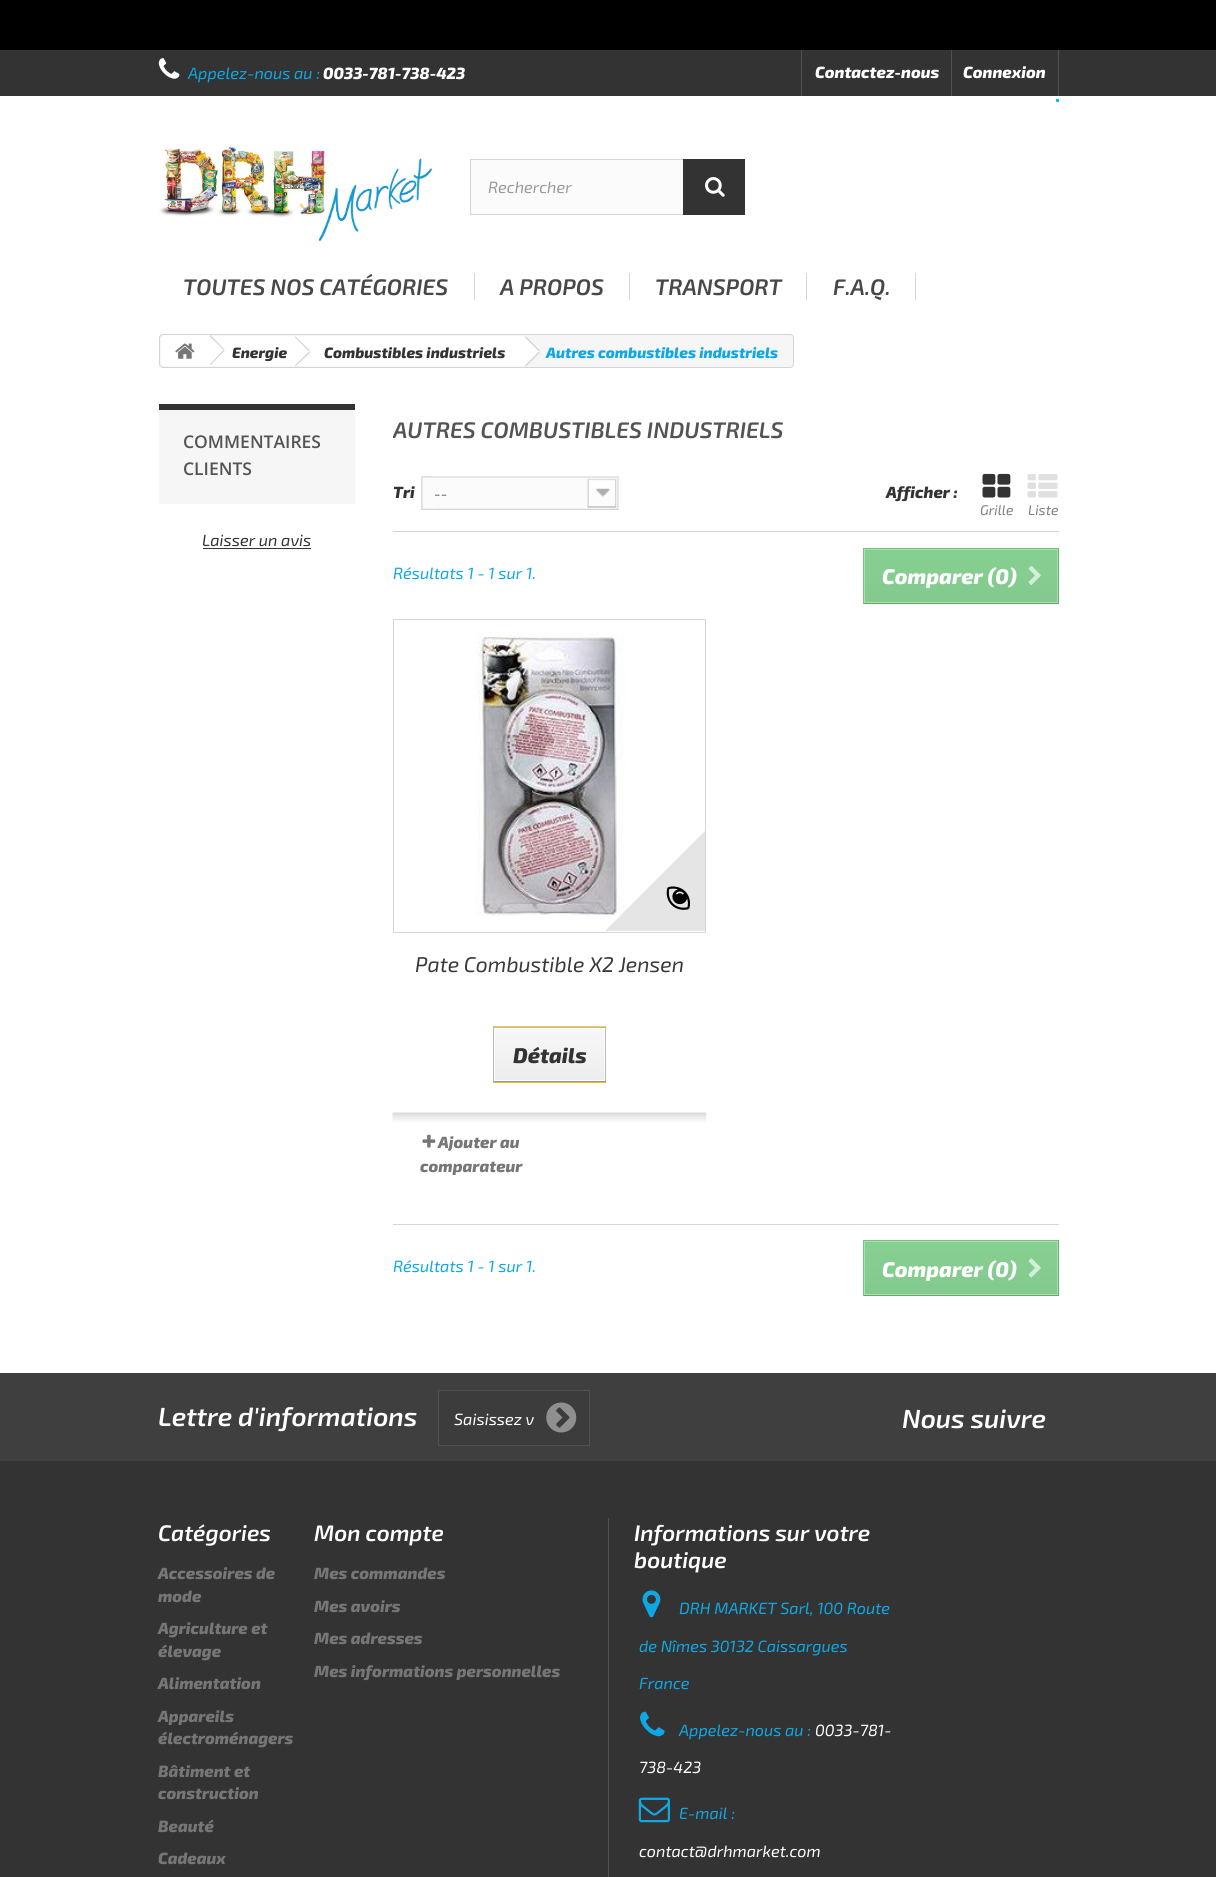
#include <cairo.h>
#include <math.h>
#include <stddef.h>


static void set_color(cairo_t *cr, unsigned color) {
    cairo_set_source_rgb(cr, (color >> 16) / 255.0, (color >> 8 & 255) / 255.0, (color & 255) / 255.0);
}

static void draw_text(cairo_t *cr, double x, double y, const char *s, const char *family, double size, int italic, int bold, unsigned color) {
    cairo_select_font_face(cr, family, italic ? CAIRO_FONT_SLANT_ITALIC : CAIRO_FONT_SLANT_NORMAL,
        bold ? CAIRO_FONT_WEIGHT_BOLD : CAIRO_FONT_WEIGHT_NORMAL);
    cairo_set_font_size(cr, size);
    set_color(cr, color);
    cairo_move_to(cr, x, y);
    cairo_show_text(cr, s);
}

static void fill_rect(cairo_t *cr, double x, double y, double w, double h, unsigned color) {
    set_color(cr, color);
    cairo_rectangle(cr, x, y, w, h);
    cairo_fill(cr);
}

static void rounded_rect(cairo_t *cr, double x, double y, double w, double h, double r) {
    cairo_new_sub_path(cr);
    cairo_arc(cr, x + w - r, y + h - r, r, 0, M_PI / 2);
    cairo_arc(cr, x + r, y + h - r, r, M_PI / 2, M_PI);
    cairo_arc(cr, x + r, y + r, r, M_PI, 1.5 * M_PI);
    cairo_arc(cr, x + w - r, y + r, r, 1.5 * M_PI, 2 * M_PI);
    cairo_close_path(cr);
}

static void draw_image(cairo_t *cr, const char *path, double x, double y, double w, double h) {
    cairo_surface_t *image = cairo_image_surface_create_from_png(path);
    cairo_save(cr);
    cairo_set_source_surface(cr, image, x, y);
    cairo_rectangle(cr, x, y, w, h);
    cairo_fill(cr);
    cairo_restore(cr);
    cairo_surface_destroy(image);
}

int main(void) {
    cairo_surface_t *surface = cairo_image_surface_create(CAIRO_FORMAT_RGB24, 1216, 1877);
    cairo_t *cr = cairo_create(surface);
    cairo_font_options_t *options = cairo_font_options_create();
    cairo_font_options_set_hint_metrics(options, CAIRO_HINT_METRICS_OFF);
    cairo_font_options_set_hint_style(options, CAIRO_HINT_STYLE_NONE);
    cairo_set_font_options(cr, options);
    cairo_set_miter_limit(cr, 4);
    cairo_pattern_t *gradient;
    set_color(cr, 0xFFFFFF);
    cairo_paint(cr);
    fill_rect(cr, 0, 0, 1216, 50, 0x000000);
    fill_rect(cr, 0, 50, 1216, 46, 0x333333);
    draw_image(cr, "assets/img1.png", 158, 58, 22, 21);
    draw_text(cr, 188, 79, "Appelez-nous au :", "Exo 2", 16.25, 1, 0, 0x0FA8E4);
    draw_text(cr, 323, 79, "0033-781-738-423", "Exo 2 ExtraBold", 16.25, 1, 0, 0xFFFFFF);
    fill_rect(cr, 801, 50, 1, 46, 0x515151);
    draw_text(cr, 815, 78, "Contactez-nous", "Exo 2 ExtraBold", 16.25, 1, 0, 0xFFFFFF);
    fill_rect(cr, 1058, 50, 1, 46, 0x515151);
    fill_rect(cr, 951, 50, 1, 46, 0x515151);
    draw_text(cr, 963, 78, "Connexion", "Exo 2 ExtraBold", 16.25, 1, 0, 0xFFFFFF);
    fill_rect(cr, 1056, 99, 3, 3, 0x00C2F2);
    draw_image(cr, "assets/img2.png", 159, 146, 274, 96);
    fill_rect(cr, 471, 160, 212, 54, 0xFBFBFB);
    cairo_rectangle(cr, 470.5, 159.5, 274, 55);
    set_color(cr, 0xD6D4D4);
    cairo_set_line_width(cr, 1);
    cairo_stroke(cr);
    draw_text(cr, 488, 193, "Rechercher", "Exo 2", 16.25, 1, 0, 0x999999);
    fill_rect(cr, 683, 159, 62, 56, 0x333333);
    draw_image(cr, "assets/img3.png", 705, 177, 20, 20);
    fill_rect(cr, 474, 273, 1, 27, 0xD6D4D4);
    draw_text(cr, 183, 295, "TOUTES NOS CATÉGORIES", "Exo 2 SemiBold", 22.5, 1, 0, 0x484848);
    fill_rect(cr, 629, 273, 1, 27, 0xD6D4D4);
    draw_text(cr, 500, 295, "A PROPOS", "Exo 2 SemiBold", 22.5, 1, 0, 0x484848);
    fill_rect(cr, 806, 273, 1, 27, 0xD6D4D4);
    draw_text(cr, 655, 295, "TRANSPORT", "Exo 2 SemiBold", 22.5, 1, 0, 0x484848);
    fill_rect(cr, 915, 273, 1, 27, 0xD6D4D4);
    draw_text(cr, 833, 295, "F.A.Q.", "Exo 2 SemiBold", 22.5, 1, 0, 0x484848);
    set_color(cr, 0xF6F6F6);
    rounded_rect(cr, 159.5, 334.5, 634, 33, 3.5);
    cairo_fill_preserve(cr);
    set_color(cr, 0xD6D4D4);
    cairo_stroke(cr);
    set_color(cr, 0xFFFFFF);
    cairo_new_path(cr);
    cairo_move_to(cr, 165, 335);
    cairo_line_to(cr, 209, 335);
    cairo_line_to(cr, 209, 366);
    cairo_line_to(cr, 165, 366);
    cairo_curve_to(cr, 163, 366, 161, 364, 161, 362);
    cairo_line_to(cr, 161, 339);
    cairo_curve_to(cr, 161, 337, 163, 335, 165, 335);
    cairo_close_path(cr);
    cairo_fill(cr);
    fill_rect(cr, 209, 336, 87, 30, 0xFFFFFF);
    cairo_new_path(cr);
    cairo_move_to(cr, 211, 336);
    cairo_line_to(cr, 223.5, 348.5);
    cairo_curve_to(cr, 224.5, 349.5, 224.5, 351, 223.5, 352);
    cairo_line_to(cr, 211, 364.5);
    cairo_curve_to(cr, 210, 365.5, 208.5, 365.5, 207.5, 364.5);
    cairo_line_to(cr, 195, 352);
    cairo_curve_to(cr, 194.5, 351, 194.5, 349.5, 195, 348.5);
    cairo_line_to(cr, 207.5, 336);
    cairo_curve_to(cr, 208.5, 335, 210, 335, 211, 336);
    cairo_close_path(cr);
    cairo_fill(cr);
    draw_image(cr, "assets/img4.png", 175, 343, 20, 16);
    set_color(cr, 0xD6D4D4);
    cairo_new_path(cr);
    cairo_move_to(cr, 210.5, 335);
    cairo_line_to(cr, 224.5, 349.5);
    cairo_line_to(cr, 223.5, 350);
    cairo_line_to(cr, 209.5, 336);
    cairo_close_path(cr);
    cairo_move_to(cr, 223.5, 350);
    cairo_line_to(cr, 224.5, 351);
    cairo_line_to(cr, 210.5, 365);
    cairo_line_to(cr, 209.5, 364.5);
    cairo_close_path(cr);
    cairo_fill(cr);
    draw_text(cr, 232, 358, "Energie", "Exo 2 ExtraBold", 15, 1, 0, 0x333333);
    set_color(cr, 0xFFFFFF);
    cairo_new_path(cr);
    cairo_move_to(cr, 309, 337.5);
    cairo_line_to(cr, 321.5, 349.5);
    cairo_curve_to(cr, 322.5, 350.5, 322.5, 352, 321.5, 353);
    cairo_line_to(cr, 308.5, 366);
    cairo_line_to(cr, 306, 366);
    cairo_line_to(cr, 305.5, 365.5);
    cairo_line_to(cr, 293, 353);
    cairo_curve_to(cr, 292, 352, 292, 350.5, 293, 349.5);
    cairo_line_to(cr, 305.5, 337.5);
    cairo_curve_to(cr, 306.5, 336.5, 308, 336.5, 309, 337.5);
    cairo_close_path(cr);
    cairo_fill(cr);
    fill_rect(cr, 296, 336, 228, 30, 0xFFFFFF);
    set_color(cr, 0xD6D4D4);
    cairo_new_path(cr);
    cairo_move_to(cr, 295.5, 336.5);
    cairo_line_to(cr, 310, 350.5);
    cairo_line_to(cr, 309, 351.5);
    cairo_line_to(cr, 295, 337.5);
    cairo_close_path(cr);
    cairo_fill(cr);
    cairo_new_path(cr);
    cairo_move_to(cr, 309, 351.5);
    cairo_line_to(cr, 310, 352.5);
    cairo_line_to(cr, 295.5, 366.5);
    cairo_line_to(cr, 295, 365.5);
    cairo_close_path(cr);
    cairo_fill(cr);
    draw_text(cr, 324, 358, "Combustibles industriels", "Exo 2 ExtraBold", 15, 1, 0, 0x333333);
    set_color(cr, 0xFFFFFF);
    cairo_new_path(cr);
    cairo_move_to(cr, 526.5, 337.5);
    cairo_line_to(cr, 539, 349.5);
    cairo_curve_to(cr, 540, 350.5, 540, 352, 539, 353);
    cairo_line_to(cr, 526, 366);
    cairo_line_to(cr, 523.5, 366);
    cairo_line_to(cr, 523, 365.5);
    cairo_line_to(cr, 511, 353);
    cairo_curve_to(cr, 510, 352, 510, 350.5, 511, 349.5);
    cairo_line_to(cr, 523, 337.5);
    cairo_curve_to(cr, 524, 336.5, 525.5, 336.5, 526.5, 337.5);
    cairo_close_path(cr);
    cairo_fill(cr);
    set_color(cr, 0xD6D4D4);
    cairo_new_path(cr);
    cairo_move_to(cr, 526, 336.5);
    cairo_line_to(cr, 540, 350.5);
    cairo_line_to(cr, 539, 351.5);
    cairo_line_to(cr, 525, 337.5);
    cairo_close_path(cr);
    cairo_fill(cr);
    cairo_new_path(cr);
    cairo_move_to(cr, 539, 351.5);
    cairo_line_to(cr, 540, 352.5);
    cairo_line_to(cr, 526, 366.5);
    cairo_line_to(cr, 525, 365.5);
    cairo_close_path(cr);
    cairo_fill(cr);
    draw_text(cr, 546, 358, "Autres combustibles industriels", "Exo 2 ExtraBold", 15, 1, 0, 0x0FA8E4);
    fill_rect(cr, 159, 410, 196, 94, 0xF6F6F6);
    fill_rect(cr, 159, 404, 196, 6, 0x333333);
    draw_text(cr, 183, 448, "COMMENTAIRES", "Open Sans SemiBold", 17.5, 0, 0, 0x555454);
    draw_text(cr, 183, 475, "CLIENTS", "Open Sans SemiBold", 17.5, 0, 0, 0x555454);
    draw_text(cr, 202, 546, "Laisser un avis", "Exo 2", 16.25, 1, 0, 0x333333);
    fill_rect(cr, 203, 548, 108, 1, 0x333333);
    cairo_save(cr);
    cairo_rectangle(cr, 393, 415, 666, 61);
    cairo_clip(cr);
    draw_text(cr, 393, 438, "AUTRES COMBUSTIBLES INDUSTRIELS", "Exo 2 SemiBold", 22.5, 1, 0, 0x555454);
    cairo_restore(cr);
    fill_rect(cr, 393, 531, 666, 1, 0xD6D4D4);
    draw_text(cr, 393, 498, "Tri", "Exo 2 ExtraBold", 16.25, 1, 0, 0x333333);
    draw_image(cr, "assets/img5.png", 421, 476, 13, 34);
    draw_image(cr, "assets/img6.png", 434, 476, 185, 34);
    draw_text(cr, 434, 499, "--", "Exo 2", 15, 1, 0, 0x666666);
    draw_text(cr, 886, 498, "Afficher :", "Exo 2 ExtraBold", 16.25, 1, 0, 0x333333);
    draw_image(cr, "assets/img7.png", 982, 473, 29, 25);
    draw_text(cr, 980, 515, "Grille", "Exo 2", 14, 1, 0, 0x808080);
    draw_image(cr, "assets/img8.png", 1027, 474, 31, 24);
    draw_text(cr, 1028, 515, "Liste", "Exo 2", 14, 1, 0, 0x808080);
    draw_text(cr, 393, 579, "Résultats 1 - 1 sur 1.", "Exo 2", 16.25, 1, 0, 0x0FA8E4);
    gradient = cairo_pattern_create_linear(961, 549, 961, 603);
    cairo_pattern_add_color_stop_rgba(gradient, 0, 0.522, 0.816, 0.565, 1);
    cairo_pattern_add_color_stop_rgba(gradient, 1, 0.518, 0.788, 0.561, 1);
    cairo_set_source(cr, gradient);
    cairo_pattern_destroy(gradient);
    cairo_rectangle(cr, 865, 550, 192, 52);
    cairo_fill(cr);
    fill_rect(cr, 863, 548, 196, 1, 0x7EBD89);
    fill_rect(cr, 1058, 548, 1, 56, 0x71AC7A);
    fill_rect(cr, 863, 603, 196, 1, 0x6AA073);
    fill_rect(cr, 863, 548, 1, 56, 0x7EBD89);
    cairo_rectangle(cr, 864.5, 549.5, 193, 53);
    set_color(cr, 0xA5E4A7);
    cairo_stroke(cr);
    draw_text(cr, 882, 584, "Comparer (0)", "Exo 2 ExtraBold", 21.25, 1, 0, 0xFFFFFF);
    draw_image(cr, "assets/img9.png", 1028, 565, 13, 20);
    cairo_rectangle(cr, 393.5, 619.5, 312, 313);
    set_color(cr, 0xD6D4D4);
    cairo_stroke(cr);
    draw_image(cr, "assets/img10.png", 475, 631, 151, 286);
    cairo_save(cr);
    cairo_rectangle(cr, 436, 738, 269, 193);
    cairo_clip(cr);
    cairo_set_source_rgba(cr, 0.816, 0.816, 0.827, 0.57);
    cairo_new_path(cr);
    cairo_move_to(cr, 712, 824);
    cairo_line_to(cr, 787, 899);
    cairo_line_to(cr, 672, 1014);
    cairo_line_to(cr, 597, 939);
    cairo_close_path(cr);
    cairo_fill(cr);
    cairo_restore(cr);
    draw_image(cr, "assets/img11.png", 666, 886, 25, 24);
    draw_text(cr, 415, 972, "Pate Combustible X2 Jensen", "Exo 2", 21.25, 1, 0, 0x3A3939);
    fill_rect(cr, 494, 1027, 111, 56, 0xF4B61B);
    fill_rect(cr, 493, 1026, 113, 1, 0xCACACA);
    fill_rect(cr, 605, 1026, 1, 57, 0xB7B7B7);
    fill_rect(cr, 493, 1081, 113, 1, 0x9A9A9A);
    fill_rect(cr, 493, 1026, 1, 57, 0xB7B7B7);
    gradient = cairo_pattern_create_linear(549, 1029, 549, 1080);
    cairo_pattern_add_color_stop_rgba(gradient, 0, 0.969, 0.969, 0.969, 1);
    cairo_pattern_add_color_stop_rgba(gradient, 1, 0.929, 0.929, 0.929, 1);
    cairo_set_source(cr, gradient);
    cairo_pattern_destroy(gradient);
    cairo_rectangle(cr, 495, 1029, 109, 51);
    cairo_fill(cr);
    cairo_rectangle(cr, 494.5, 1028.5, 110, 52);
    set_color(cr, 0xFFFFFF);
    cairo_stroke(cr);
    draw_text(cr, 513, 1063, "Détails", "Exo 2 ExtraBold", 21.25, 1, 0, 0x333333);
    draw_image(cr, "assets/img12.png", 392, 1112, 315, 10);
    draw_image(cr, "assets/img13.png", 422, 1134, 14, 14);
    draw_text(cr, 438, 1148, "Ajouter au", "Exo 2 ExtraBold", 16.25, 1, 0, 0x777676);
    draw_text(cr, 420, 1172, "comparateur", "Exo 2 ExtraBold", 16.25, 1, 0, 0x777676);
    fill_rect(cr, 393, 1224, 666, 1, 0xD6D4D4);
    draw_text(cr, 393, 1272, "Résultats 1 - 1 sur 1.", "Exo 2", 16.25, 1, 0, 0x0FA8E4);
    gradient = cairo_pattern_create_linear(961, 1241, 961, 1295);
    cairo_pattern_add_color_stop_rgba(gradient, 0, 0.522, 0.816, 0.565, 1);
    cairo_pattern_add_color_stop_rgba(gradient, 1, 0.518, 0.788, 0.561, 1);
    cairo_set_source(cr, gradient);
    cairo_pattern_destroy(gradient);
    cairo_rectangle(cr, 865, 1242, 192, 52);
    cairo_fill(cr);
    fill_rect(cr, 863, 1240, 196, 1, 0x7EBD89);
    fill_rect(cr, 1058, 1240, 1, 56, 0x71AC7A);
    fill_rect(cr, 863, 1295, 196, 1, 0x6AA073);
    fill_rect(cr, 863, 1240, 1, 56, 0x7EBD89);
    cairo_rectangle(cr, 864.5, 1241.5, 193, 53);
    set_color(cr, 0xA5E4A7);
    cairo_stroke(cr);
    draw_text(cr, 882, 1277, "Comparer (0)", "Exo 2 ExtraBold", 21.25, 1, 0, 0xFFFFFF);
    draw_image(cr, "assets/img14.png", 1028, 1258, 13, 20);
    fill_rect(cr, 0, 1461, 1216, 416, 0x333333);
    fill_rect(cr, 0, 1373, 1216, 88, 0x3F3F3F);
    draw_text(cr, 158, 1426, "Lettre d'informations", "Exo 2 SemiBold", 26.25, 1, 0, 0xFFFFFF);
    set_color(cr, 0x3C3C3C);
    cairo_rectangle(cr, 438.5, 1390.5, 151, 55);
    cairo_fill_preserve(cr);
    set_color(cr, 0x515151);
    cairo_stroke(cr);
    draw_text(cr, 454, 1425, "Saisissez v", "Exo 2", 16.25, 1, 0, 0xFFFFFF);
    draw_image(cr, "assets/img15.png", 546, 1402, 31, 31);
    draw_text(cr, 902, 1428, "Nous suivre", "Exo 2 SemiBold", 26.25, 1, 0, 0xFFFFFF);
    draw_text(cr, 158, 1541, "Catégories", "Exo 2 SemiBold", 22.5, 1, 0, 0xFFFFFF);
    draw_text(cr, 158, 1579, "Accessoires de", "Exo 2 ExtraBold", 16.25, 1, 0, 0x777676);
    draw_text(cr, 158, 1602, "mode", "Exo 2 ExtraBold", 16.25, 1, 0, 0x777676);
    draw_text(cr, 158, 1634, "Agriculture et", "Exo 2 ExtraBold", 16.25, 1, 0, 0x777676);
    draw_text(cr, 158, 1657, "élevage", "Exo 2 ExtraBold", 16.25, 1, 0, 0x777676);
    draw_text(cr, 158, 1689, "Alimentation", "Exo 2 ExtraBold", 16.25, 1, 0, 0x777676);
    draw_text(cr, 158, 1722, "Appareils", "Exo 2 ExtraBold", 16.25, 1, 0, 0x777676);
    draw_text(cr, 158, 1744, "électroménagers", "Exo 2 ExtraBold", 16.25, 1, 0, 0x777676);
    draw_text(cr, 158, 1777, "Bâtiment et", "Exo 2 ExtraBold", 16.25, 1, 0, 0x777676);
    draw_text(cr, 158, 1799, "construction", "Exo 2 ExtraBold", 16.25, 1, 0, 0x777676);
    draw_text(cr, 158, 1832, "Beauté", "Exo 2 ExtraBold", 16.25, 1, 0, 0x777676);
    draw_text(cr, 158, 1864, "Cadeaux", "Exo 2 ExtraBold", 16.25, 1, 0, 0x777676);
    draw_text(cr, 314, 1541, "Mon compte", "Exo 2 SemiBold", 22.5, 1, 0, 0xFFFFFF);
    draw_text(cr, 314, 1579, "Mes commandes", "Exo 2 ExtraBold", 16.25, 1, 0, 0x777676);
    draw_text(cr, 314, 1612, "Mes avoirs", "Exo 2 ExtraBold", 16.25, 1, 0, 0x777676);
    draw_text(cr, 314, 1644, "Mes adresses", "Exo 2 ExtraBold", 16.25, 1, 0, 0x777676);
    draw_text(cr, 314, 1677, "Mes informations personnelles", "Exo 2 ExtraBold", 16.25, 1, 0, 0x777676);
    fill_rect(cr, 608, 1518, 1, 359, 0x515151);
    draw_text(cr, 634, 1541, "Informations sur votre", "Exo 2 SemiBold", 22.5, 1, 0, 0xFFFFFF);
    draw_text(cr, 634, 1568, "boutique", "Exo 2 SemiBold", 22.5, 1, 0, 0xFFFFFF);
    draw_image(cr, "assets/img16.png", 642, 1590, 19, 28);
    draw_text(cr, 679, 1614, "DRH MARKET Sarl, 100 Route", "Exo 2", 16.25, 1, 0, 0x0FA8E4);
    draw_text(cr, 639, 1652, "de Nîmes 30132 Caissargues", "Exo 2", 16.25, 1, 0, 0x0FA8E4);
    draw_text(cr, 639, 1689, "France", "Exo 2", 16.25, 1, 0, 0x0FA8E4);
    draw_image(cr, "assets/img17.png", 640, 1711, 25, 26);
    draw_text(cr, 679, 1736, "Appelez-nous au :", "Exo 2", 16.25, 1, 0, 0x0FA8E4);
    draw_text(cr, 815, 1736, "0033-781-", "Exo 2", 16.25, 1, 0, 0xFFFFFF);
    draw_text(cr, 639, 1773, "738-423", "Exo 2", 16.25, 1, 0, 0xFFFFFF);
    draw_image(cr, "assets/img18.png", 638, 1797, 32, 26);
    draw_text(cr, 679, 1819, "E-mail :", "Exo 2", 16.25, 1, 0, 0x0FA8E4);
    draw_text(cr, 639, 1857, "contact@drhmarket.com", "Exo 2", 16.25, 1, 0, 0xFFFFFF);
    cairo_surface_write_to_png(surface, "output.png");
    cairo_font_options_destroy(options);
    cairo_destroy(cr);
    cairo_surface_destroy(surface);
    return 0;
}
